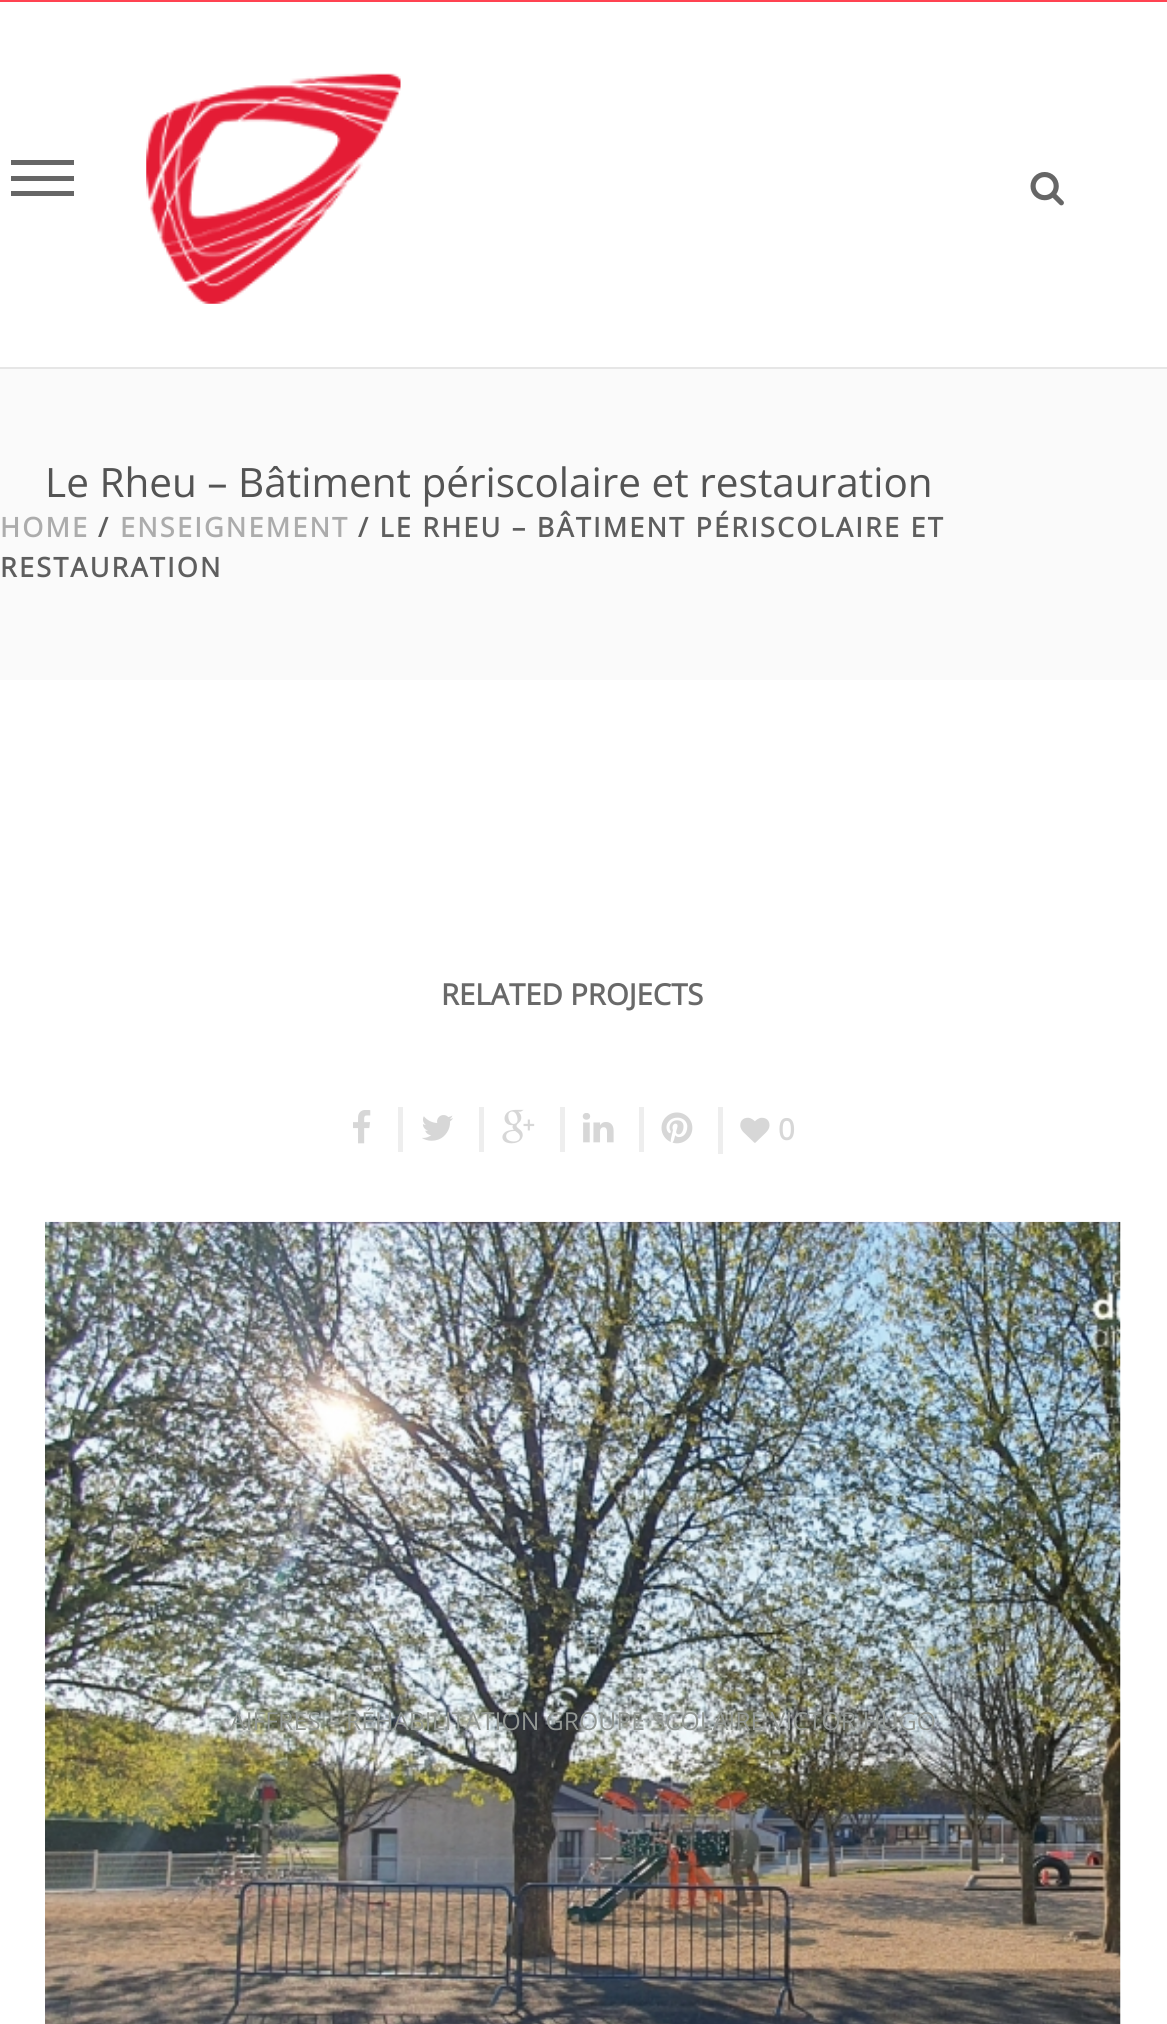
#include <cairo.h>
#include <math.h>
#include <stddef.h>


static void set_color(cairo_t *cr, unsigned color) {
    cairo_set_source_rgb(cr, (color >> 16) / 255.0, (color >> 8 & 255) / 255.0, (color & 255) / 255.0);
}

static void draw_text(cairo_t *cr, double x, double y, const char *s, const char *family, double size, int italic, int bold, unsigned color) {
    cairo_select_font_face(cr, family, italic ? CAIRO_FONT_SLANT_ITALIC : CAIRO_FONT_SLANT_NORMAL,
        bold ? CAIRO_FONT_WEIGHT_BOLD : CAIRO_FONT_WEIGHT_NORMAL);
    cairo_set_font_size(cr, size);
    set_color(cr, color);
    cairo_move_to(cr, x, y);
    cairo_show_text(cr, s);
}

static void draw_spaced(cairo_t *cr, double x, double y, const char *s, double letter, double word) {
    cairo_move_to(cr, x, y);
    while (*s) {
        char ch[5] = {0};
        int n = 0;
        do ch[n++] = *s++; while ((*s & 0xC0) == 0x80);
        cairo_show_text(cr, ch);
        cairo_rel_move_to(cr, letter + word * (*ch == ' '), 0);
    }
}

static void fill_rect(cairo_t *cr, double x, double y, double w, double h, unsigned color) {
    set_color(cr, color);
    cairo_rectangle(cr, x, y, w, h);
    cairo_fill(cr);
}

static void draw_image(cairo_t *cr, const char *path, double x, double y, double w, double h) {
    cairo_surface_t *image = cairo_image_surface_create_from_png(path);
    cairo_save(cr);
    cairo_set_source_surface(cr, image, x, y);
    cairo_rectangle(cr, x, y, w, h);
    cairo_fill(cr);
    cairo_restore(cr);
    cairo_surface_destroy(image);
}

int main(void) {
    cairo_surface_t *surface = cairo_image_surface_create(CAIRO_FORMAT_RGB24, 1167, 2024);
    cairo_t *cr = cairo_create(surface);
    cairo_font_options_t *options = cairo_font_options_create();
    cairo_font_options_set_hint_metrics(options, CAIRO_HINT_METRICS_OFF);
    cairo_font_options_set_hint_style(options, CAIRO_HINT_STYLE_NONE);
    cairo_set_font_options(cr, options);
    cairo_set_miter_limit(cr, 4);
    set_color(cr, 0xFFFFFF);
    cairo_paint(cr);
    fill_rect(cr, 0, 0, 1167, 2, 0xFF4351);
    fill_rect(cr, 0, 367, 1167, 2, 0xE6E6E6);
    fill_rect(cr, 11, 160, 63, 5, 0x666666);
    fill_rect(cr, 11, 176, 63, 5, 0x666666);
    fill_rect(cr, 11, 191, 63, 5, 0x666666);
    draw_image(cr, "assets/img1.png", 146, 73, 255, 231);
    draw_image(cr, "assets/img2.png", 1030, 172, 34, 34);
    fill_rect(cr, 0, 369, 1167, 311, 0xFAFAFA);
    draw_text(cr, 45, 497, "Le Rheu – Bâtiment périscolaire et restauration", "Open Sans", 40.5, 0, 0, 0x545454);
    cairo_select_font_face(cr, "Open Sans", CAIRO_FONT_SLANT_NORMAL, CAIRO_FONT_WEIGHT_BOLD);
    cairo_set_font_size(cr, 27);
    set_color(cr, 0xACACAC);
    draw_spaced(cr, 0, 537, "HOME", 2.25, 0);
    set_color(cr, 0x5E5E5E);
    draw_spaced(cr, 98, 537, "/", 2.25, 0);
    set_color(cr, 0xACACAC);
    draw_spaced(cr, 120, 537, "ENSEIGNEMENT", 2.25, 0);
    set_color(cr, 0x5E5E5E);
    draw_spaced(cr, 358, 537, "/ LE RHEU – BÂTIMENT PÉRISCOLAIRE ET", 2.25, 0);
    draw_spaced(cr, 0, 577, "RESTAURATION", 2.25, 0);
    draw_text(cr, 441, 1005, "RELATED PROJECTS", "Open Sans", 29.25, 0, 1, 0x696969);
    draw_image(cr, "assets/img3.png", 353, 1110, 18, 34);
    fill_rect(cr, 398, 1107, 5, 45, 0xEEEEEE);
    draw_image(cr, "assets/img4.png", 422, 1115, 31, 26);
    fill_rect(cr, 479, 1107, 5, 45, 0xEEEEEE);
    draw_image(cr, "assets/img5.png", 502, 1109, 33, 35);
    fill_rect(cr, 560, 1107, 5, 45, 0xEEEEEE);
    draw_image(cr, "assets/img6.png", 582, 1113, 32, 30);
    fill_rect(cr, 639, 1107, 5, 45, 0xEEEEEE);
    draw_image(cr, "assets/img7.png", 661, 1112, 32, 32);
    fill_rect(cr, 718, 1107, 5, 47, 0xEEEEEE);
    draw_image(cr, "assets/img8.png", 740, 1117, 30, 26);
    draw_text(cr, 778, 1140, "0", "Open Sans", 29.25, 0, 1, 0xD7D7D7);
    draw_image(cr, "assets/img9.png", 45, 1221, 1076, 803);
    draw_text(cr, 230, 1730, "AIFFRES – RÉHABILITATION GROUPE SCOLAIRE VICTOR HUGO", "Open Sans", 24.75, 0, 0, 0x929793);
    cairo_surface_write_to_png(surface, "output.png");
    cairo_font_options_destroy(options);
    cairo_destroy(cr);
    cairo_surface_destroy(surface);
    return 0;
}
